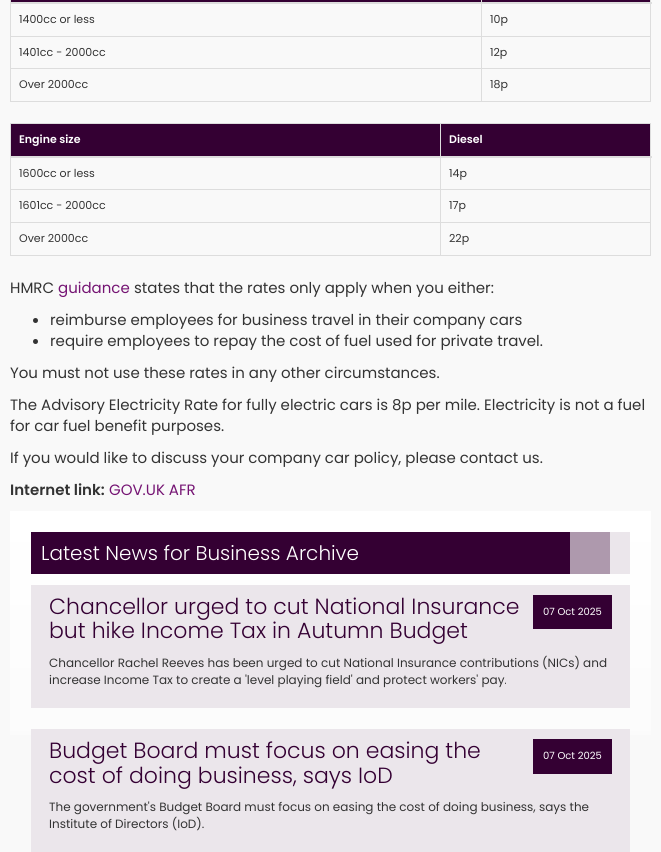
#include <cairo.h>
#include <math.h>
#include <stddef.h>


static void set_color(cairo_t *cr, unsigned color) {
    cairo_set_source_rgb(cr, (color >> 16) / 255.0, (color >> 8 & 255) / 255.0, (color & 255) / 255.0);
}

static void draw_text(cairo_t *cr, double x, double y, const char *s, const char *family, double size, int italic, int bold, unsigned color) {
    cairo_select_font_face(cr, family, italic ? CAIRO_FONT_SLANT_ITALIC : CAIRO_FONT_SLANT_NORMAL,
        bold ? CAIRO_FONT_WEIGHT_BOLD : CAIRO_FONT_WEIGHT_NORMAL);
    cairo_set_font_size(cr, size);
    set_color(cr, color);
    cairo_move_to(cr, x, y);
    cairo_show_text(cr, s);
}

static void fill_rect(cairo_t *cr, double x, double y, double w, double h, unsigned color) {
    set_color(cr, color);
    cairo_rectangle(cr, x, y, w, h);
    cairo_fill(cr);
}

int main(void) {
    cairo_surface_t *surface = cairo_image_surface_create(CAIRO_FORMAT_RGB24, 661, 852);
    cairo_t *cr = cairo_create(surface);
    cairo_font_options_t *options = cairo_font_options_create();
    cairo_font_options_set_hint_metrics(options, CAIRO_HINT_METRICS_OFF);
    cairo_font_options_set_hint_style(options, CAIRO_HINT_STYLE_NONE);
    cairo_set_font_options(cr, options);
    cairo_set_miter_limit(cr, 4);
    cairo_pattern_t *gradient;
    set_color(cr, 0xF9F9F9);
    cairo_paint(cr);
    fill_rect(cr, 11, 0, 640, 2, 0x340033);
    fill_rect(cr, 650, 0, 1, 102, 0xDDDDDD);
    fill_rect(cr, 10, 101, 641, 1, 0xDDDDDD);
    fill_rect(cr, 10, 0, 1, 102, 0xDDDDDD);
    fill_rect(cr, 481, 36, 170, 1, 0xDDDDDD);
    fill_rect(cr, 481, 68, 170, 1, 0xDDDDDD);
    fill_rect(cr, 481, 68, 1, 34, 0xDDDDDD);
    fill_rect(cr, 10, 68, 472, 1, 0xDDDDDD);
    fill_rect(cr, 481, 36, 1, 33, 0xDDDDDD);
    fill_rect(cr, 10, 36, 472, 1, 0xDDDDDD);
    fill_rect(cr, 481, 0, 1, 37, 0xDDDDDD);
    fill_rect(cr, 10, 2, 642, 2, 0xDDDDDD);
    draw_text(cr, 19, 23, "1400cc or less", "Poppins", 11, 0, 0, 0x333333);
    draw_text(cr, 490, 23, "10p", "Poppins", 11, 0, 0, 0x333333);
    draw_text(cr, 19, 56, "1401cc - 2000cc", "Poppins", 11, 0, 0, 0x333333);
    draw_text(cr, 490, 56, "12p", "Poppins", 11, 0, 0, 0x333333);
    draw_text(cr, 19, 88, "Over 2000cc", "Poppins", 11, 0, 0, 0x333333);
    draw_text(cr, 490, 88, "18p", "Poppins", 11, 0, 0, 0x333333);
    fill_rect(cr, 10, 123, 641, 1, 0xDDDDDD);
    fill_rect(cr, 650, 123, 1, 133, 0xDDDDDD);
    fill_rect(cr, 10, 255, 641, 1, 0xDDDDDD);
    fill_rect(cr, 10, 123, 1, 133, 0xDDDDDD);
    fill_rect(cr, 11, 124, 429, 32, 0x340033);
    draw_text(cr, 19, 143, "Engine size", "Poppins SemiBold", 11, 0, 0, 0xFFFFFF);
    fill_rect(cr, 441, 124, 209, 32, 0x340033);
    fill_rect(cr, 440, 189, 211, 1, 0xDDDDDD);
    fill_rect(cr, 440, 222, 211, 1, 0xDDDDDD);
    fill_rect(cr, 440, 222, 1, 34, 0xDDDDDD);
    fill_rect(cr, 10, 222, 431, 1, 0xDDDDDD);
    fill_rect(cr, 440, 189, 1, 34, 0xDDDDDD);
    fill_rect(cr, 10, 189, 431, 1, 0xDDDDDD);
    fill_rect(cr, 440, 123, 1, 67, 0xDDDDDD);
    fill_rect(cr, 10, 156, 642, 2, 0xDDDDDD);
    draw_text(cr, 449, 143, "Diesel", "Poppins SemiBold", 11, 0, 0, 0xFFFFFF);
    draw_text(cr, 19, 177, "1600cc or less", "Poppins", 11, 0, 0, 0x333333);
    draw_text(cr, 449, 177, "14p", "Poppins", 11, 0, 0, 0x333333);
    draw_text(cr, 19, 209, "1601cc - 2000cc", "Poppins", 11, 0, 0, 0x333333);
    draw_text(cr, 449, 209, "17p", "Poppins", 11, 0, 0, 0x333333);
    draw_text(cr, 19, 242, "Over 2000cc", "Poppins", 11, 0, 0, 0x333333);
    draw_text(cr, 449, 242, "22p", "Poppins", 11, 0, 0, 0x333333);
    draw_text(cr, 10, 293, "HMRC", "Poppins", 15, 0, 0, 0x333333);
    draw_text(cr, 58, 293, "guidance", "Poppins", 15, 0, 0, 0x751473);
    draw_text(cr, 134, 293, "states that the rates only apply when you either:", "Poppins", 15, 0, 0, 0x333333);
    cairo_new_path(cr);
    cairo_arc(cr, 35.5, 320.5, 2.5, 0, 2 * M_PI);
    cairo_fill(cr);
    draw_text(cr, 50, 325, "reimburse employees for business travel in their company cars", "Poppins", 15, 0, 0, 0x333333);
    cairo_new_path(cr);
    cairo_arc(cr, 35.5, 341.5, 2.5, 0, 2 * M_PI);
    cairo_fill(cr);
    draw_text(cr, 50, 346, "require employees to repay the cost of fuel used for private travel.", "Poppins", 15, 0, 0, 0x333333);
    draw_text(cr, 10, 378, "You must not use these rates in any other circumstances.", "Poppins", 15, 0, 0, 0x333333);
    draw_text(cr, 10, 410, "The Advisory Electricity Rate for fully electric cars is 8p per mile. Electricity is not a fuel", "Poppins", 15, 0, 0, 0x333333);
    draw_text(cr, 10, 431, "for car fuel benefit purposes.", "Poppins", 15, 0, 0, 0x333333);
    draw_text(cr, 10, 463, "If you would like to discuss your company car policy, please contact us.", "Poppins", 15, 0, 0, 0x333333);
    draw_text(cr, 10, 495, "Internet link:", "Poppins SemiBold", 15, 0, 0, 0x333333);
    draw_text(cr, 109, 495, "GOV.UK AFR", "Poppins", 15, 0, 0, 0x751473);
    gradient = cairo_pattern_create_linear(331, 511, 331, 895);
    cairo_pattern_add_color_stop_rgba(gradient, 0, 1, 1, 1, 1);
    cairo_pattern_add_color_stop_rgba(gradient, 1, 0.976, 0.976, 0.976, 1);
    cairo_set_source(cr, gradient);
    cairo_pattern_destroy(gradient);
    cairo_rectangle(cr, 10, 511, 641, 224);
    cairo_fill(cr);
    fill_rect(cr, 31, 532, 539, 42, 0x340033);
    fill_rect(cr, 610, 532, 20, 42, 0xEBE6EB);
    draw_text(cr, 41, 560, "Latest News for Business Archive", "Poppins Light", 20, 0, 0, 0xFFFFFF);
    fill_rect(cr, 570, 532, 40, 42, 0xAE99AD);
    fill_rect(cr, 31, 585, 599, 123, 0xEBE6EB);
    draw_text(cr, 49, 614, "Chancellor urged to cut National Insurance", "Poppins Light", 22, 0, 0, 0x340033);
    draw_text(cr, 49, 638, "but hike Income Tax in Autumn Budget", "Poppins Light", 22, 0, 0, 0x340033);
    draw_text(cr, 49, 667, "Chancellor Rachel Reeves has been urged to cut National Insurance contributions (NICs) and", "Poppins", 12, 0, 0, 0x333333);
    draw_text(cr, 49, 684, "increase Income Tax to create a 'level playing field' and protect workers' pay.", "Poppins", 12, 0, 0, 0x333333);
    fill_rect(cr, 533, 595, 79, 34, 0x340033);
    draw_text(cr, 543, 615, "07 Oct 2025", "Poppins", 10, 0, 0, 0xFFFFFF);
    fill_rect(cr, 31, 729, 599, 123, 0xEBE6EB);
    draw_text(cr, 49, 758, "Budget Board must focus on easing the", "Poppins Light", 22, 0, 0, 0x340033);
    draw_text(cr, 49, 783, "cost of doing business, says IoD", "Poppins Light", 22, 0, 0, 0x340033);
    draw_text(cr, 49, 811, "The government's Budget Board must focus on easing the cost of doing business, says the", "Poppins", 12, 0, 0, 0x333333);
    draw_text(cr, 49, 828, "Institute of Directors (IoD).", "Poppins", 12, 0, 0, 0x333333);
    fill_rect(cr, 533, 739, 79, 35, 0x340033);
    draw_text(cr, 543, 759, "07 Oct 2025", "Poppins", 10, 0, 0, 0xFFFFFF);
    cairo_surface_write_to_png(surface, "output.png");
    cairo_font_options_destroy(options);
    cairo_destroy(cr);
    cairo_surface_destroy(surface);
    return 0;
}
